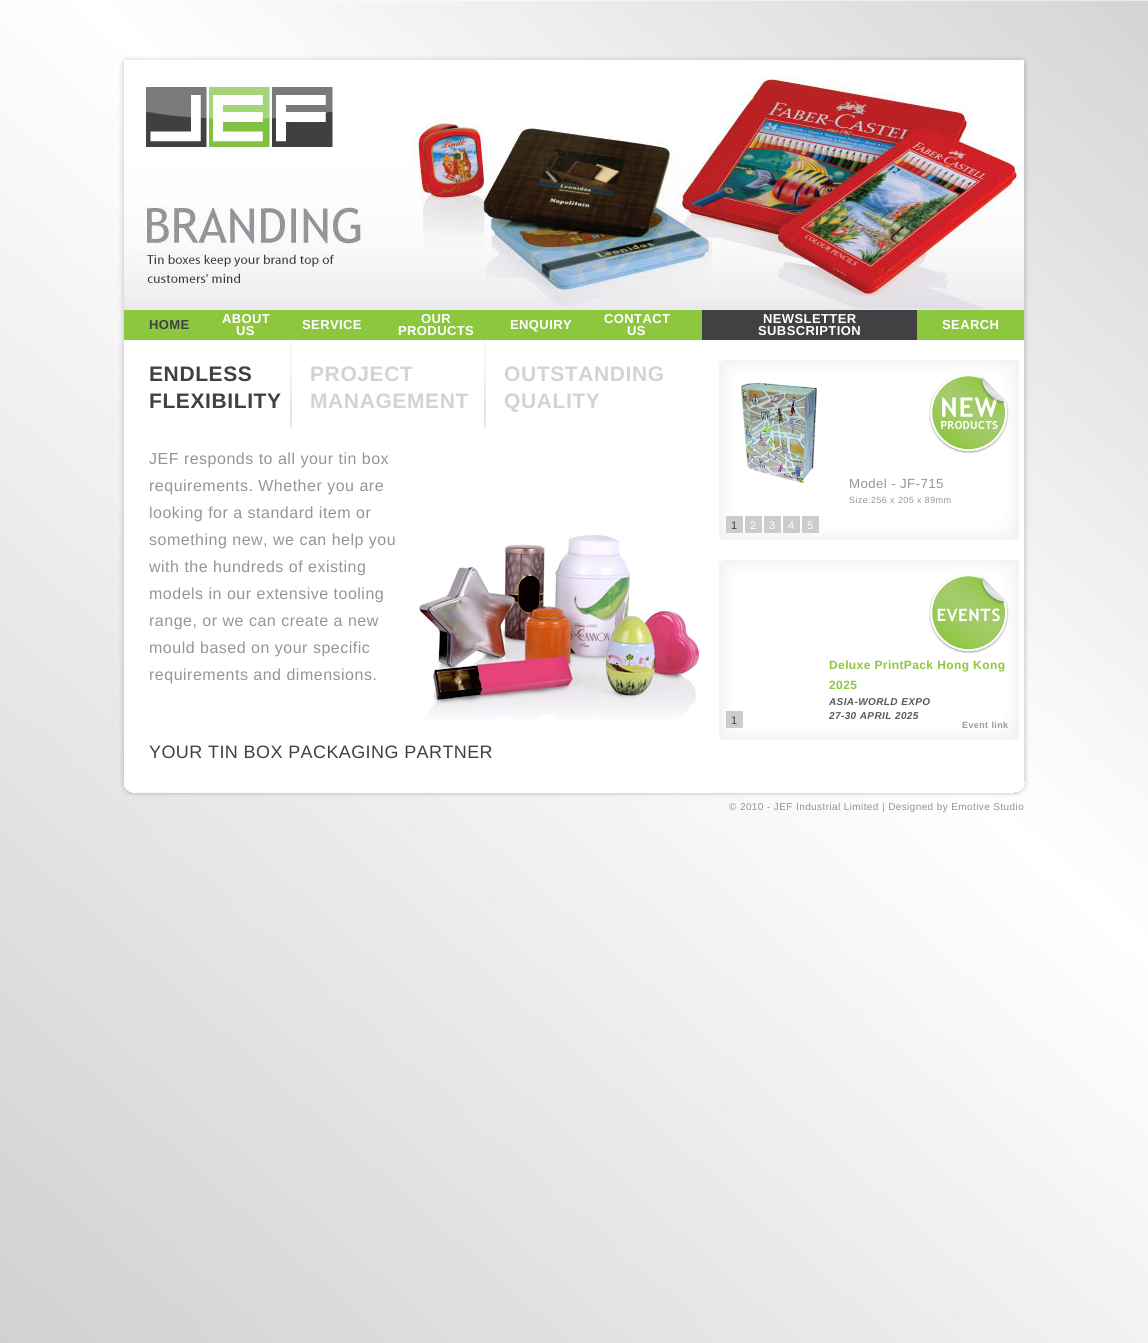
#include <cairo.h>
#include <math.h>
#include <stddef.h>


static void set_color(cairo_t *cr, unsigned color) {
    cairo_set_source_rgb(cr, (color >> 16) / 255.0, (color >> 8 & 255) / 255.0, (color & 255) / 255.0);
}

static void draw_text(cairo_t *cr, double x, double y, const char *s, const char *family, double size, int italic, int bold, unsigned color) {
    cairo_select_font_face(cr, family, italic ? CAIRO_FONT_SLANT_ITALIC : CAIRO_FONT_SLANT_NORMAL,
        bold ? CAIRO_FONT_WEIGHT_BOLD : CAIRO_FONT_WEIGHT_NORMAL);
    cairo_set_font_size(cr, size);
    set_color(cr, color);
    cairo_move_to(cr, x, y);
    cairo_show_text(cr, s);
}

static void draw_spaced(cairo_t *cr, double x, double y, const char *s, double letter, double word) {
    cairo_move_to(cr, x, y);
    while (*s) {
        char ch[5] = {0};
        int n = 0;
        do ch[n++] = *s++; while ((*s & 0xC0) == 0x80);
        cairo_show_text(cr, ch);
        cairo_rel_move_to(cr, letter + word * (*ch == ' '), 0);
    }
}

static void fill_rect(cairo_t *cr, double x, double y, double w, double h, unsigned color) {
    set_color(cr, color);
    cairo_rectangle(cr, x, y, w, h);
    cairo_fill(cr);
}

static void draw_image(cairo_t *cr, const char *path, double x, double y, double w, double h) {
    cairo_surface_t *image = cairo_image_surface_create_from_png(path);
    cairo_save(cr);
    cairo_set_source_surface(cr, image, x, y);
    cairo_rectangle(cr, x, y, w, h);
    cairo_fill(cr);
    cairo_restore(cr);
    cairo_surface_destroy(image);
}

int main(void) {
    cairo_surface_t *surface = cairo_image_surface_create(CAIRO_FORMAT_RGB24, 1148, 1343);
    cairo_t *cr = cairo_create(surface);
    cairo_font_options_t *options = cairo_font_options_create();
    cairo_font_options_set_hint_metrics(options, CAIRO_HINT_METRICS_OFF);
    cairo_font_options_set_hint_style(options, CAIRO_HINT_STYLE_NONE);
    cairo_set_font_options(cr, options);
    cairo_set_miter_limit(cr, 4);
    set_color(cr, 0xFFFFFF);
    cairo_paint(cr);
    draw_image(cr, "assets/img1.png", 0, 0, 1148, 1343);
    draw_image(cr, "assets/img2.png", 119, 56, 910, 254);
    fill_rect(cr, 124, 309, 900, 1, 0xE9EAEC);
    draw_image(cr, "assets/img3.png", 124, 60, 900, 249);
    draw_image(cr, "assets/img4.png", 119, 310, 910, 30);
    fill_rect(cr, 124, 310, 578, 30, 0x8DC63F);
    fill_rect(cr, 702, 310, 215, 30, 0x414042);
    fill_rect(cr, 917, 310, 107, 30, 0x8DC63F);
    cairo_select_font_face(cr, "Liberation Sans", CAIRO_FONT_SLANT_NORMAL, CAIRO_FONT_WEIGHT_BOLD);
    cairo_set_font_size(cr, 13);
    set_color(cr, 0x414042);
    draw_spaced(cr, 149, 329, "HOME", 0.4, 0);
    set_color(cr, 0xFFFFFF);
    draw_spaced(cr, 222, 323, "ABOUT", 0.4, 0);
    draw_spaced(cr, 236, 335, "US", 0.4, 0);
    draw_spaced(cr, 302, 329, "SERVICE", 0.4, 0);
    draw_spaced(cr, 421, 323, "OUR", 0.4, 0);
    draw_spaced(cr, 398, 335, "PRODUCTS", 0.4, 0);
    draw_spaced(cr, 510, 329, "ENQUIRY", 0.4, 0);
    draw_spaced(cr, 604, 323, "CONTACT", 0.4, 0);
    draw_spaced(cr, 627, 335, "US", 0.4, 0);
    draw_spaced(cr, 763, 323, "NEWSLETTER", 0.4, 0);
    draw_spaced(cr, 758, 335, "SUBSCRIPTION", 0.4, 0);
    draw_spaced(cr, 942, 329, "SEARCH", 0.4, 0);
    draw_image(cr, "assets/img5.png", 119, 340, 910, 436);
    draw_image(cr, "assets/img6.png", 290, 340, 2, 89);
    cairo_set_font_size(cr, 21);
    set_color(cr, 0x414042);
    draw_spaced(cr, 149, 381, "ENDLESS", 0.6, 0);
    draw_spaced(cr, 149, 408, "FLEXIBILITY", 0.6, 0);
    draw_image(cr, "assets/img6.png", 484, 340, 2, 89);
    set_color(cr, 0xD1D3D4);
    draw_spaced(cr, 310, 381, "PROJECT", 0.6, 0);
    draw_spaced(cr, 310, 408, "MANAGEMENT", 0.6, 0);
    draw_spaced(cr, 504, 381, "OUTSTANDING", 0.6, 0);
    draw_spaced(cr, 504, 408, "QUALITY", 0.6, 0);
    cairo_select_font_face(cr, "Liberation Sans", CAIRO_FONT_SLANT_NORMAL, CAIRO_FONT_WEIGHT_NORMAL);
    cairo_set_font_size(cr, 16);
    set_color(cr, 0x939598);
    draw_spaced(cr, 149, 464, "JEF responds to all your tin box", 0.5, 0);
    draw_spaced(cr, 149, 491, "requirements. Whether you are", 0.5, 0);
    draw_spaced(cr, 149, 518, "looking for a standard item or", 0.5, 0);
    draw_spaced(cr, 149, 545, "something new, we can help you", 0.5, 0);
    draw_spaced(cr, 149, 572, "with the hundreds of existing", 0.5, 0);
    draw_spaced(cr, 149, 599, "models in our extensive tooling", 0.5, 0);
    draw_spaced(cr, 149, 626, "range, or we can create a new", 0.5, 0);
    draw_spaced(cr, 149, 653, "mould based on your specific", 0.5, 0);
    draw_spaced(cr, 149, 680, "requirements and dimensions.", 0.5, 0);
    draw_image(cr, "assets/img7.png", 419, 534, 280, 186);
    cairo_set_font_size(cr, 18);
    set_color(cr, 0x414042);
    draw_spaced(cr, 149, 758, "YOUR TIN BOX PACKAGING PARTNER", 0.4, 0);
    draw_image(cr, "assets/img8.png", 719, 360, 300, 180);
    draw_image(cr, "assets/img9.png", 741, 383, 76, 100);
    cairo_set_font_size(cr, 13.25);
    set_color(cr, 0x939598);
    draw_spaced(cr, 849, 488, "Model - JF-715", 0.4, 0);
    cairo_set_font_size(cr, 9);
    draw_spaced(cr, 849, 503, "Size:256 x 205 x 89mm", 0.4, 0);
    fill_rect(cr, 726, 516, 17, 17, 0xCCCCCC);
    draw_text(cr, 731, 529, "1", "Liberation Sans", 11, 0, 0, 0x414042);
    fill_rect(cr, 745, 516, 17, 17, 0xCCCCCC);
    draw_text(cr, 750, 529, "2", "Liberation Sans", 11, 0, 0, 0xFFFFFF);
    fill_rect(cr, 764, 516, 17, 17, 0xCCCCCC);
    draw_text(cr, 769, 529, "3", "Liberation Sans", 11, 0, 0, 0xFFFFFF);
    fill_rect(cr, 783, 516, 17, 17, 0xCCCCCC);
    draw_text(cr, 788, 529, "4", "Liberation Sans", 11, 0, 0, 0xFFFFFF);
    fill_rect(cr, 802, 516, 17, 17, 0xCCCCCC);
    draw_text(cr, 807, 529, "5", "Liberation Sans", 11, 0, 0, 0xFFFFFF);
    draw_image(cr, "assets/img8.png", 719, 560, 300, 180);
    draw_image(cr, "assets/img10.png", 937, 597, 63, 32);
    fill_rect(cr, 726, 711, 17, 17, 0xCCCCCC);
    draw_text(cr, 731, 724, "1", "Liberation Sans", 11, 0, 0, 0x414042);
    cairo_select_font_face(cr, "Liberation Sans", CAIRO_FONT_SLANT_NORMAL, CAIRO_FONT_WEIGHT_BOLD);
    cairo_set_font_size(cr, 12);
    set_color(cr, 0x8DC63F);
    draw_spaced(cr, 829, 669, "Deluxe PrintPack Hong Kong", 0.4, 0);
    draw_spaced(cr, 829, 689, "2025", 0.4, 0);
    cairo_select_font_face(cr, "Liberation Sans", CAIRO_FONT_SLANT_ITALIC, CAIRO_FONT_WEIGHT_BOLD);
    cairo_set_font_size(cr, 10);
    set_color(cr, 0x58595B);
    draw_spaced(cr, 829, 705, "ASIA-WORLD EXPO", 0.4, 0);
    draw_spaced(cr, 829, 719, "27-30 APRIL 2025", 0.4, 0);
    cairo_select_font_face(cr, "Liberation Sans", CAIRO_FONT_SLANT_NORMAL, CAIRO_FONT_WEIGHT_BOLD);
    cairo_set_font_size(cr, 9);
    set_color(cr, 0x999999);
    draw_spaced(cr, 962, 728, "Event link", 0.4, 0);
    draw_image(cr, "assets/img11.png", 119, 776, 910, 21);
    cairo_select_font_face(cr, "Liberation Sans", CAIRO_FONT_SLANT_NORMAL, CAIRO_FONT_WEIGHT_NORMAL);
    cairo_set_font_size(cr, 10);
    set_color(cr, 0x929292);
    draw_spaced(cr, 729, 810, "© 2010 - JEF Industrial Limited | Designed by Emotive Studio", 0.4, 0);
    cairo_surface_write_to_png(surface, "output.png");
    cairo_font_options_destroy(options);
    cairo_destroy(cr);
    cairo_surface_destroy(surface);
    return 0;
}
